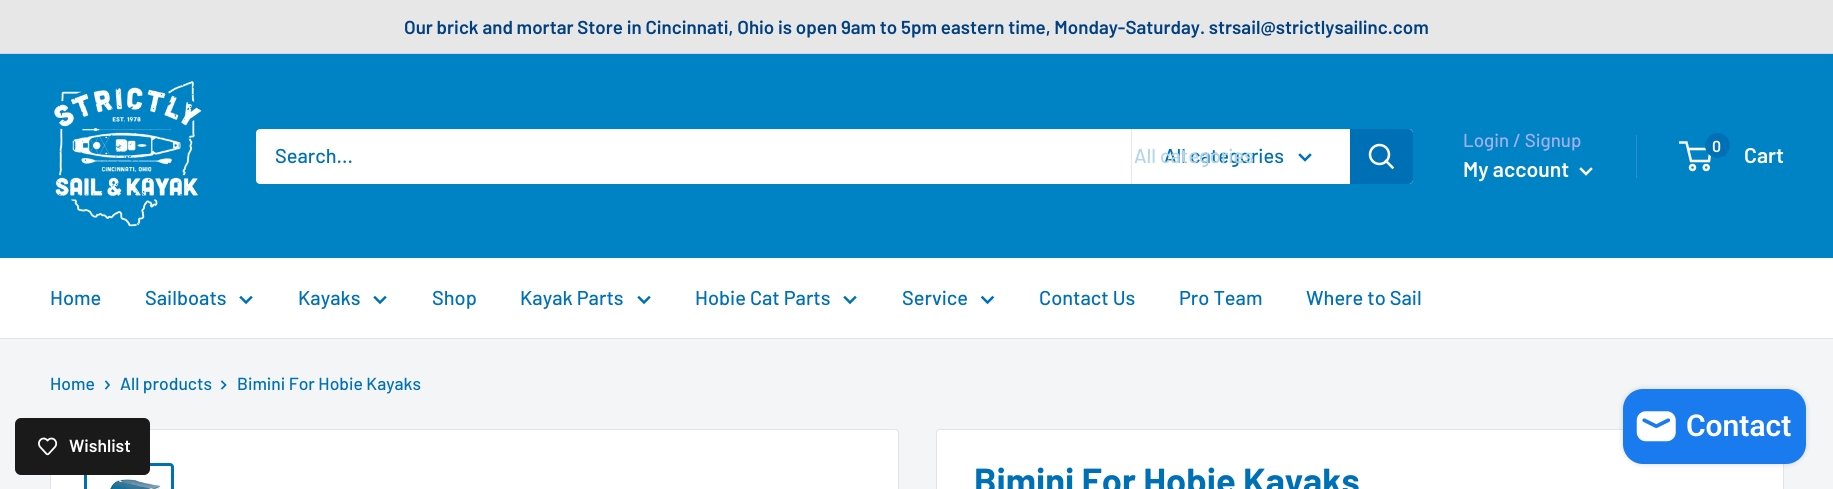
#include <cairo.h>
#include <math.h>
#include <stddef.h>


static void set_color(cairo_t *cr, unsigned color) {
    cairo_set_source_rgb(cr, (color >> 16) / 255.0, (color >> 8 & 255) / 255.0, (color & 255) / 255.0);
}

static void draw_text(cairo_t *cr, double x, double y, const char *s, const char *family, double size, int italic, int bold, unsigned color) {
    cairo_select_font_face(cr, family, italic ? CAIRO_FONT_SLANT_ITALIC : CAIRO_FONT_SLANT_NORMAL,
        bold ? CAIRO_FONT_WEIGHT_BOLD : CAIRO_FONT_WEIGHT_NORMAL);
    cairo_set_font_size(cr, size);
    set_color(cr, color);
    cairo_move_to(cr, x, y);
    cairo_show_text(cr, s);
}

static void fill_rect(cairo_t *cr, double x, double y, double w, double h, unsigned color) {
    set_color(cr, color);
    cairo_rectangle(cr, x, y, w, h);
    cairo_fill(cr);
}

static void rounded_rect(cairo_t *cr, double x, double y, double w, double h, double r) {
    cairo_new_sub_path(cr);
    cairo_arc(cr, x + w - r, y + h - r, r, 0, M_PI / 2);
    cairo_arc(cr, x + r, y + h - r, r, M_PI / 2, M_PI);
    cairo_arc(cr, x + r, y + r, r, M_PI, 1.5 * M_PI);
    cairo_arc(cr, x + w - r, y + r, r, 1.5 * M_PI, 2 * M_PI);
    cairo_close_path(cr);
}

static void draw_shadow(cairo_t *cr, double x, double y, double w, double h, double r, double blur, double alpha) {
    cairo_push_group_with_content(cr, CAIRO_CONTENT_ALPHA);
    cairo_set_operator(cr, CAIRO_OPERATOR_SOURCE);
    for (int i = 15; i >= -15 && fmin(w, h) + blur * i / 3 > 0; i -= 2) {
        double e = blur * i / 6;
        cairo_set_source_rgba(cr, 0, 0, 0, alpha * erfc((i - 1) / 8.5) / 2);
        rounded_rect(cr, x - e, y - e, w + 2 * e, h + 2 * e, fmax(0, fmin(r + e + blur * .6, fmin(w, h) / 2 + e)));
        cairo_fill(cr);
    }
    cairo_pattern_t *soft = cairo_pop_group(cr);
    cairo_mask(cr, soft);
    cairo_pattern_destroy(soft);
}

static void draw_image(cairo_t *cr, const char *path, double x, double y, double w, double h) {
    cairo_surface_t *image = cairo_image_surface_create_from_png(path);
    cairo_save(cr);
    cairo_set_source_surface(cr, image, x, y);
    cairo_rectangle(cr, x, y, w, h);
    cairo_fill(cr);
    cairo_restore(cr);
    cairo_surface_destroy(image);
}

int main(void) {
    cairo_surface_t *surface = cairo_image_surface_create(CAIRO_FORMAT_RGB24, 1833, 489);
    cairo_t *cr = cairo_create(surface);
    cairo_font_options_t *options = cairo_font_options_create();
    cairo_font_options_set_hint_metrics(options, CAIRO_HINT_METRICS_OFF);
    cairo_font_options_set_hint_style(options, CAIRO_HINT_STYLE_NONE);
    cairo_set_font_options(cr, options);
    cairo_set_miter_limit(cr, 4);
    set_color(cr, 0xF3F5F6);
    cairo_paint(cr);
    fill_rect(cr, 0, 0, 1833, 53, 0xE7E7E7);
    fill_rect(cr, 0, 53, 1833, 1, 0xD3D6E9);
    draw_text(cr, 404, 34, "Our brick and mortar Store in Cincinnati, Ohio is open 9am to 5pm eastern time, Monday-Saturday. strsail@strictlysailinc.com", "Barlow SemiBold", 18.75, 0, 0, 0x004080);
    fill_rect(cr, 0, 54, 1833, 204, 0x0083C4);
    draw_image(cr, "assets/img1.png", 54, 81, 148, 146);
    set_color(cr, 0xFFFFFF);
    rounded_rect(cr, 256, 129, 1157, 55, 4);
    cairo_fill(cr);
    draw_text(cr, 275, 163, "Search...", "Barlow Medium", 20, 0, 0, 0x0070B6);
    fill_rect(cr, 1131, 129, 1, 55, 0xE3E7FA);
    draw_text(cr, 1164, 163, "All categories", "Barlow Medium", 20, 0, 0, 0x0070B6);
    draw_text(cr, 1134, 163, "All categories", "Barlow Medium", 20, 0, 0, 0xB3D4E9);
    cairo_new_path(cr);
    cairo_move_to(cr, 1310, 155);
    cairo_line_to(cr, 1305, 160);
    cairo_line_to(cr, 1300, 155);
    set_color(cr, 0x0070B6);
    cairo_set_line_width(cr, 2.5);
    cairo_set_line_cap(cr, CAIRO_LINE_CAP_SQUARE);
    cairo_stroke(cr);
    cairo_new_path(cr);
    cairo_move_to(cr, 1350, 129);
    cairo_line_to(cr, 1409, 129);
    cairo_curve_to(cr, 1411, 129, 1413, 131, 1413, 133);
    cairo_line_to(cr, 1413, 180);
    cairo_curve_to(cr, 1413, 182, 1411, 184, 1409, 184);
    cairo_line_to(cr, 1350, 184);
    cairo_close_path(cr);
    cairo_fill(cr);
    cairo_new_path(cr);
    cairo_move_to(cr, 1392.5, 167.5);
    cairo_line_to(cr, 1386, 161);
    set_color(cr, 0xFFFFFF);
    cairo_stroke(cr);
    cairo_arc(cr, 1379.5, 154.5, 9.5, 0, 2 * M_PI);
    cairo_set_line_cap(cr, CAIRO_LINE_CAP_BUTT);
    cairo_stroke(cr);
    draw_text(cr, 1463, 147, "Login / Signup", "Barlow Medium", 18.75, 0, 0, 0xA3AFEF);
    fill_rect(cr, 1636, 135, 1, 43, 0x3190D1);
    draw_text(cr, 1463, 177, "My account", "Barlow SemiBold", 21.25, 0, 0, 0xFFFFFF);
    cairo_new_path(cr);
    cairo_move_to(cr, 1591, 169);
    cairo_line_to(cr, 1586, 174);
    cairo_line_to(cr, 1581, 169);
    cairo_set_line_cap(cr, CAIRO_LINE_CAP_SQUARE);
    cairo_stroke(cr);
    cairo_arc(cr, 1692.5, 167.5, 2.5, 0, 2 * M_PI);
    cairo_set_line_cap(cr, CAIRO_LINE_CAP_BUTT);
    cairo_stroke(cr);
    cairo_arc(cr, 1706.2, 167.5, 2.5, 0, 2 * M_PI);
    cairo_stroke(cr);
    cairo_new_path(cr);
    cairo_move_to(cr, 1688, 149);
    cairo_line_to(cr, 1710.5, 149);
    cairo_line_to(cr, 1709, 161);
    cairo_line_to(cr, 1691, 161);
    cairo_line_to(cr, 1686.5, 142.5);
    cairo_line_to(cr, 1679, 142.5);
    cairo_stroke(cr);
    set_color(cr, 0x0070B6);
    cairo_arc(cr, 1717.5, 145.5, 12.5, 0, 2 * M_PI);
    cairo_fill(cr);
    draw_text(cr, 1712, 152, "0", "Barlow SemiBold", 16, 0, 0, 0xFFFFFF);
    draw_text(cr, 1744, 163, "Cart", "Barlow SemiBold", 21.25, 0, 0, 0xFFFFFF);
    fill_rect(cr, 0, 258, 1833, 80, 0xFFFFFF);
    fill_rect(cr, 0, 338, 1833, 1, 0xE1E3E4);
    draw_text(cr, 50, 305, "Home", "Barlow Medium", 20, 0, 0, 0x0070B6);
    draw_text(cr, 145, 305, "Sailboats", "Barlow Medium", 20, 0, 0, 0x0070B6);
    cairo_new_path(cr);
    cairo_move_to(cr, 251, 297.5);
    cairo_line_to(cr, 246, 302.5);
    cairo_line_to(cr, 241, 297.5);
    cairo_set_line_cap(cr, CAIRO_LINE_CAP_SQUARE);
    cairo_stroke(cr);
    draw_text(cr, 298, 305, "Kayaks", "Barlow Medium", 20, 0, 0, 0x0070B6);
    cairo_new_path(cr);
    cairo_move_to(cr, 385, 297.5);
    cairo_line_to(cr, 380, 302.5);
    cairo_line_to(cr, 375, 297.5);
    cairo_stroke(cr);
    draw_text(cr, 432, 305, "Shop", "Barlow Medium", 20, 0, 0, 0x0070B6);
    draw_text(cr, 520, 305, "Kayak Parts", "Barlow Medium", 20, 0, 0, 0x0070B6);
    cairo_new_path(cr);
    cairo_move_to(cr, 649, 297.5);
    cairo_line_to(cr, 644, 302.5);
    cairo_line_to(cr, 639, 297.5);
    cairo_stroke(cr);
    draw_text(cr, 695, 305, "Hobie Cat Parts", "Barlow Medium", 20, 0, 0, 0x0070B6);
    cairo_new_path(cr);
    cairo_move_to(cr, 855, 297.5);
    cairo_line_to(cr, 850, 302.5);
    cairo_line_to(cr, 845, 297.5);
    cairo_stroke(cr);
    draw_text(cr, 902, 305, "Service", "Barlow Medium", 20, 0, 0, 0x0070B6);
    cairo_new_path(cr);
    cairo_move_to(cr, 992.5, 297.5);
    cairo_line_to(cr, 987.5, 302.5);
    cairo_line_to(cr, 982.5, 297.5);
    cairo_stroke(cr);
    draw_text(cr, 1039, 305, "Contact Us", "Barlow Medium", 20, 0, 0, 0x0070B6);
    draw_text(cr, 1179, 305, "Pro Team", "Barlow Medium", 20, 0, 0, 0x0070B6);
    draw_text(cr, 1306, 305, "Where to Sail", "Barlow Medium", 20, 0, 0, 0x0070B6);
    draw_text(cr, 50, 390, "Home", "Barlow Medium", 17.5, 0, 0, 0x0070B6);
    cairo_new_path(cr);
    cairo_move_to(cr, 106, 381.5);
    cairo_line_to(cr, 109, 385);
    cairo_line_to(cr, 106, 388.5);
    cairo_set_line_width(cr, 1.7);
    cairo_stroke(cr);
    draw_text(cr, 120, 390, "All products", "Barlow Medium", 17.5, 0, 0, 0x0070B6);
    cairo_new_path(cr);
    cairo_move_to(cr, 222, 381.5);
    cairo_line_to(cr, 225.5, 385);
    cairo_line_to(cr, 222, 388.5);
    cairo_stroke(cr);
    draw_text(cr, 237, 390, "Bimini For Hobie Kayaks", "Barlow Medium", 17.5, 0, 0, 0x0070B6);
    set_color(cr, 0xFFFFFF);
    rounded_rect(cr, 50.5, 429.5, 848, 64, 3.5);
    cairo_fill_preserve(cr);
    set_color(cr, 0xE1E3E4);
    cairo_set_line_width(cr, 1);
    cairo_set_line_cap(cr, CAIRO_LINE_CAP_BUTT);
    cairo_stroke(cr);
    rounded_rect(cr, 85.5, 464.5, 87, 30, 2.5);
    set_color(cr, 0x0070B6);
    cairo_set_line_width(cr, 3);
    cairo_stroke(cr);
    draw_image(cr, "assets/img2.png", 109, 478, 52, 11);
    set_color(cr, 0xFFFFFF);
    rounded_rect(cr, 936.5, 429.5, 847, 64, 3.5);
    cairo_fill_preserve(cr);
    set_color(cr, 0xE1E3E4);
    cairo_set_line_width(cr, 1);
    cairo_stroke(cr);
    draw_text(cr, 974, 494, "Bimini For Hobie Kayaks", "Barlow", 36.25, 0, 1, 0x0070B6);
    set_color(cr, 0x000000);
    draw_shadow(cr, 1623, 389, 183, 75, 20, 3, 0.15);
    set_color(cr, 0x1A7BEF);
    rounded_rect(cr, 1623, 389, 183, 75, 20);
    cairo_fill(cr);
    draw_image(cr, "assets/img3.png", 1636, 411, 40, 31);
    draw_text(cr, 1686, 436, "Contact", "Roboto SemiBold", 30, 0, 0, 0xFFFFFF);
    set_color(cr, 0x1A1A1A);
    rounded_rect(cr, 15, 418, 135, 57, 6);
    cairo_fill(cr);
    draw_image(cr, "assets/img4.png", 38, 437, 20, 19);
    draw_text(cr, 69, 452, "Wishlist", "Barlow SemiBold", 17.5, 0, 0, 0xFFFFFF);
    cairo_surface_write_to_png(surface, "output.png");
    cairo_font_options_destroy(options);
    cairo_destroy(cr);
    cairo_surface_destroy(surface);
    return 0;
}
